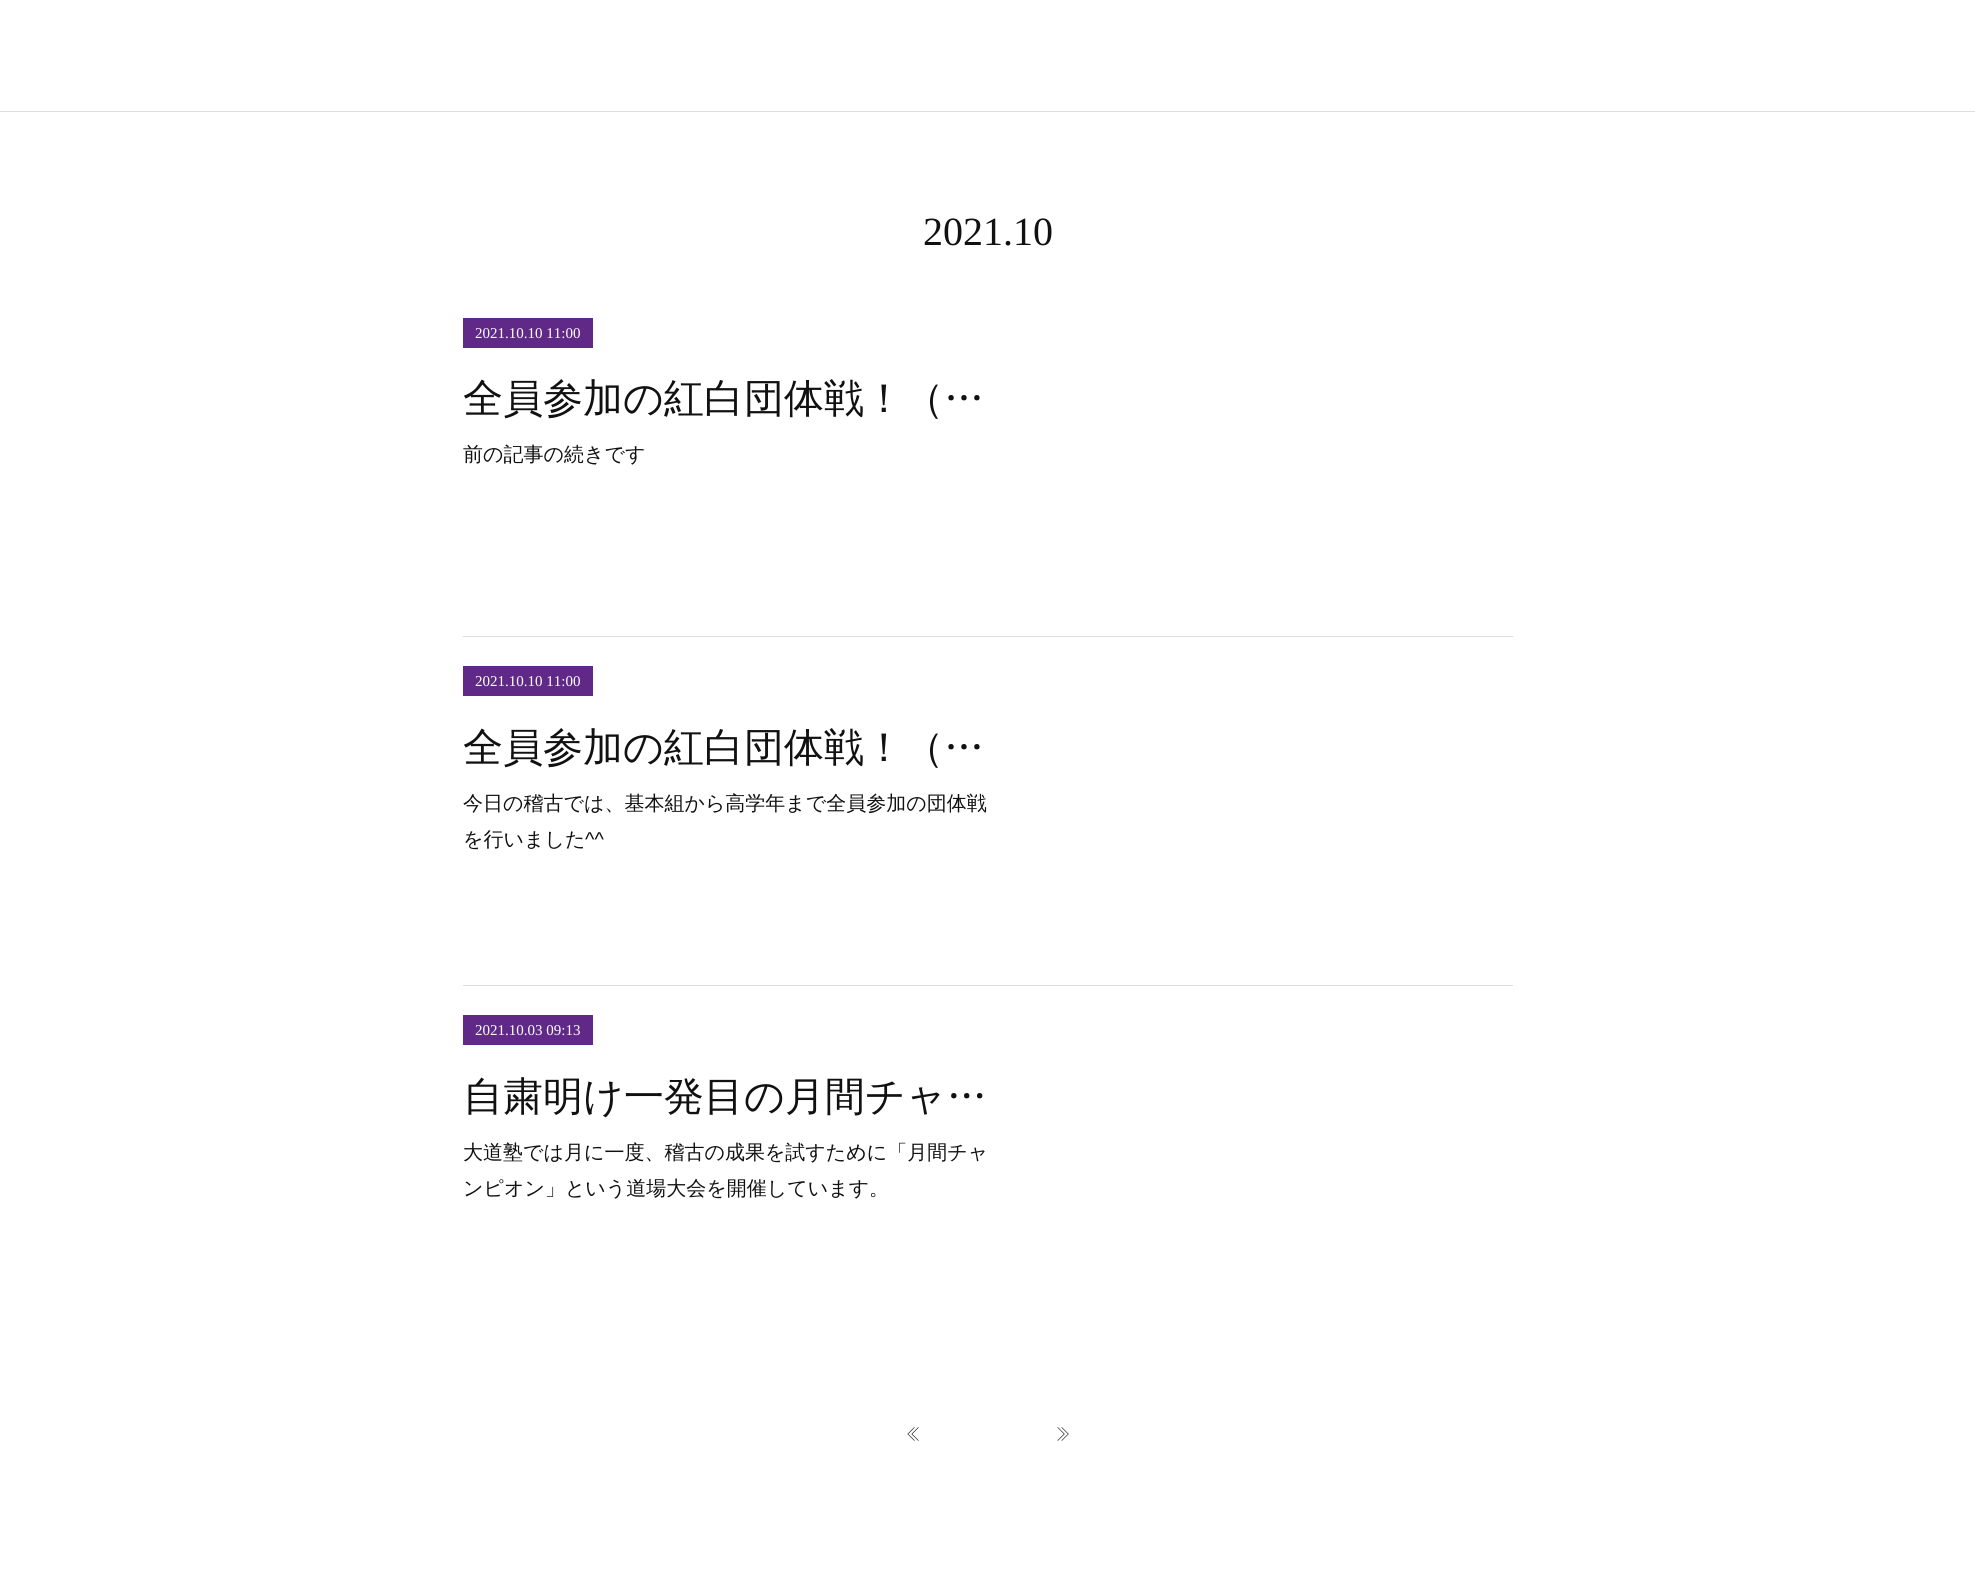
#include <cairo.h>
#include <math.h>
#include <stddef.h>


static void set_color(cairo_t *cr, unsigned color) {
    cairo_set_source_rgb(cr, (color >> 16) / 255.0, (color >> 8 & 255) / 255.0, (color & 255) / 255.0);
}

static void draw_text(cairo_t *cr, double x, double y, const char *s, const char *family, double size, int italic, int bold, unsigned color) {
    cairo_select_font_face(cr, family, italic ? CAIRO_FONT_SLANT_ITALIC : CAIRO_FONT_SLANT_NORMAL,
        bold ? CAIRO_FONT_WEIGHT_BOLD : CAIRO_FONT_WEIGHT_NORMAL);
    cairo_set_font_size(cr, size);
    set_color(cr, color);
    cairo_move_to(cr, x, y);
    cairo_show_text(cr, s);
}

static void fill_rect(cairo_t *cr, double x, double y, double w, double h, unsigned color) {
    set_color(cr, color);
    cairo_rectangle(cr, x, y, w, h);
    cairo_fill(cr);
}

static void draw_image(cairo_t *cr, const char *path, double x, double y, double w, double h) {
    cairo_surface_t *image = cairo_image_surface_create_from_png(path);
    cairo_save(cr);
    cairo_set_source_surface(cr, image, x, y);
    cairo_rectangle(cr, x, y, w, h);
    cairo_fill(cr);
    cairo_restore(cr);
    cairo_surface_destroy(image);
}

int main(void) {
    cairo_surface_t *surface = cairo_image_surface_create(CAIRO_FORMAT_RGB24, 1975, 1593);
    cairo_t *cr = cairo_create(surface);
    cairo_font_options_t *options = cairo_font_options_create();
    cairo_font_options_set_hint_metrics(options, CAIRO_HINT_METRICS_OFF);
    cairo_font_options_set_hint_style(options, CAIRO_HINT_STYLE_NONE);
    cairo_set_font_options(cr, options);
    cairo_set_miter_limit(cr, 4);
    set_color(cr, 0xFFFFFF);
    cairo_paint(cr);
    fill_rect(cr, 0, 111, 1975, 1, 0xDDDDDD);
    draw_text(cr, 923, 245, "2021.10", "Liberation Serif", 40, 0, 0, 0x111111);
    fill_rect(cr, 463, 318, 130, 30, 0x612987);
    draw_text(cr, 475, 338, "2021.10.10 11:00", "Liberation Serif", 15, 0, 0, 0xFFFFFF);
    draw_text(cr, 463, 412, "全員参加の紅白団体戦！（…", "WenQuanYi Zen Hei Medium", 40, 0, 0, 0x111111);
    draw_text(cr, 463, 461, "前の記事の続きです", "WenQuanYi Zen Hei Medium", 20, 0, 0, 0x111111);
    fill_rect(cr, 463, 636, 1050, 1, 0xDDDDDD);
    fill_rect(cr, 463, 666, 130, 30, 0x612987);
    draw_text(cr, 475, 686, "2021.10.10 11:00", "Liberation Serif", 15, 0, 0, 0xFFFFFF);
    draw_text(cr, 463, 761, "全員参加の紅白団体戦！（…", "WenQuanYi Zen Hei Medium", 40, 0, 0, 0x111111);
    draw_text(cr, 463, 810, "今日の稽古では、基本組から高学年まで全員参加の団体戦", "WenQuanYi Zen Hei Medium", 20, 0, 0, 0x111111);
    draw_text(cr, 463, 846, "を行いました", "WenQuanYi Zen Hei Medium", 20, 0, 0, 0x111111);
    draw_text(cr, 585, 846, "^^", "Liberation Sans", 20, 0, 0, 0x111111);
    fill_rect(cr, 463, 985, 1050, 1, 0xDDDDDD);
    fill_rect(cr, 463, 1015, 130, 30, 0x612987);
    draw_text(cr, 475, 1035, "2021.10.03 09:13", "Liberation Serif", 15, 0, 0, 0xFFFFFF);
    draw_text(cr, 463, 1110, "自粛明け一発目の月間チャ…", "WenQuanYi Zen Hei Medium", 40, 0, 0, 0x111111);
    draw_text(cr, 463, 1159, "大道塾では月に一度、稽古の成果を試すために「月間チャ", "WenQuanYi Zen Hei Medium", 20, 0, 0, 0x111111);
    draw_text(cr, 463, 1195, "ンピオン」という道場大会を開催しています。", "WenQuanYi Zen Hei Medium", 20, 0, 0, 0x111111);
    draw_image(cr, "assets/img1.png", 907, 1427, 12, 14);
    draw_image(cr, "assets/img2.png", 1057, 1427, 12, 14);
    cairo_surface_write_to_png(surface, "output.png");
    cairo_font_options_destroy(options);
    cairo_destroy(cr);
    cairo_surface_destroy(surface);
    return 0;
}
